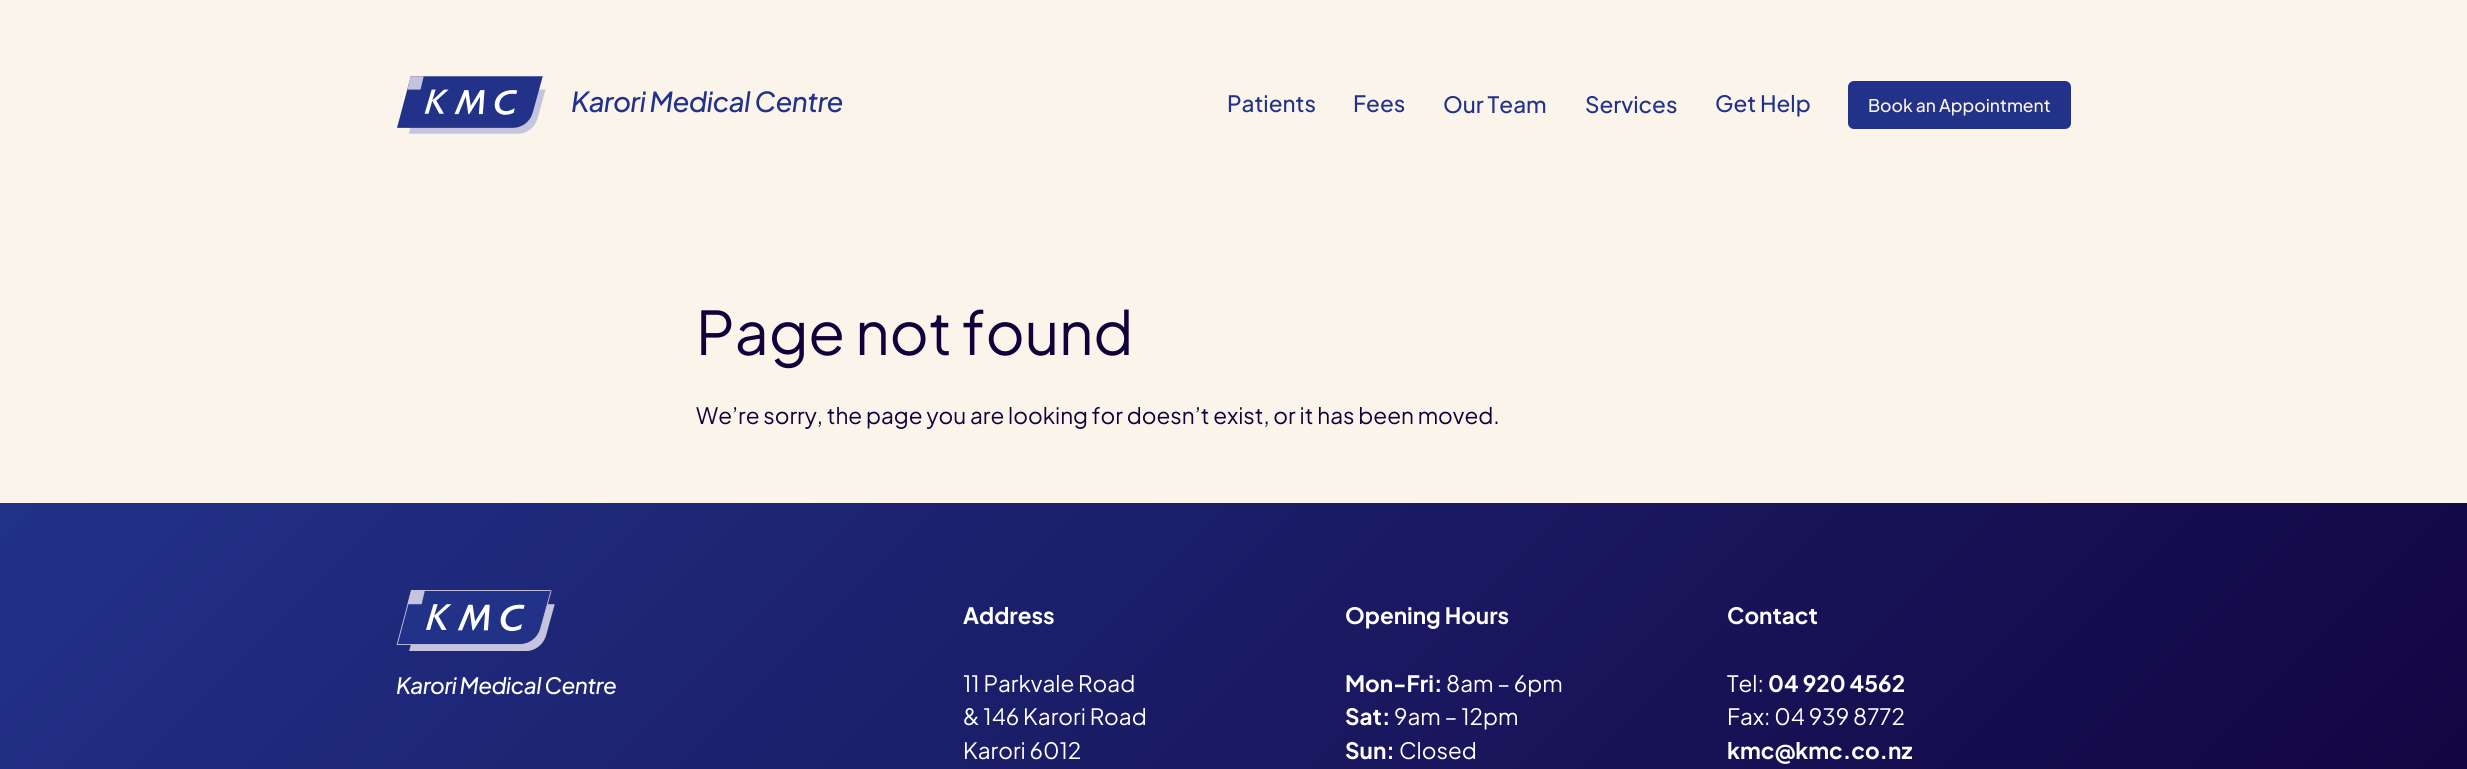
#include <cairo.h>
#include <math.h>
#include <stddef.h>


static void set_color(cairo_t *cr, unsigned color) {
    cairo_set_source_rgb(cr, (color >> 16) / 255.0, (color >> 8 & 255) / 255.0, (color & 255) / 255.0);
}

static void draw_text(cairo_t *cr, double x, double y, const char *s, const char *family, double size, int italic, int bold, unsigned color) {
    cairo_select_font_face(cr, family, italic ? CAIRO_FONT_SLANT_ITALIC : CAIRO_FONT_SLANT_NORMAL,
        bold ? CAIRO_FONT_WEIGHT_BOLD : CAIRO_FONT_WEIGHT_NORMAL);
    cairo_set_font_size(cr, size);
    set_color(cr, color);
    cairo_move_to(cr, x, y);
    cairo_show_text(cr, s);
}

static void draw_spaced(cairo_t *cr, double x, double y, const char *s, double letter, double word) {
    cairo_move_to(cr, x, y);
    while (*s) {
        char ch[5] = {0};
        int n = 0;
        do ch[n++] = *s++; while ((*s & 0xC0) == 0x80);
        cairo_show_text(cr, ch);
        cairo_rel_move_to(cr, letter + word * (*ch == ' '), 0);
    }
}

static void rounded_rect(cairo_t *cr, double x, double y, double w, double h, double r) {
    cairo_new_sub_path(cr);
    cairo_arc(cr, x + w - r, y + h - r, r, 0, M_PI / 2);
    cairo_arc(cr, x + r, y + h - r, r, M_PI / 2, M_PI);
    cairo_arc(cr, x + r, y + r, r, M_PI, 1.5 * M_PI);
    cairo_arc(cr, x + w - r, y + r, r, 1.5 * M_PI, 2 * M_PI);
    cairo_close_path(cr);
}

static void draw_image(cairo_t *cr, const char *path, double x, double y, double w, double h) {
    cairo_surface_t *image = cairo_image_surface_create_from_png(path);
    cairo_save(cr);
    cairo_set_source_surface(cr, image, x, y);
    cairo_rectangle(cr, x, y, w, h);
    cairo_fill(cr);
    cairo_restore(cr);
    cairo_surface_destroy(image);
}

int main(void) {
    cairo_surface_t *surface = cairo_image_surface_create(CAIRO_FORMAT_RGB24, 2467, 769);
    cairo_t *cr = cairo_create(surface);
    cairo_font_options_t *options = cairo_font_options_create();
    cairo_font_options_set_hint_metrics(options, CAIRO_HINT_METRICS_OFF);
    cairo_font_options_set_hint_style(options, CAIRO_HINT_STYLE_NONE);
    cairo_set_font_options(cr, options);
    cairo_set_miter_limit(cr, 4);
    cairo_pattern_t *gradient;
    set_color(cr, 0xFAF4EB);
    cairo_paint(cr);
    draw_image(cr, "assets/img1.png", 397, 76, 149, 58);
    cairo_select_font_face(cr, "Plus Jakarta Sans Medium", CAIRO_FONT_SLANT_ITALIC, CAIRO_FONT_WEIGHT_NORMAL);
    cairo_set_font_size(cr, 27.5);
    set_color(cr, 0x223289);
    draw_spaced(cr, 571, 112, "Karori Medical Centre", -0.6, 0);
    draw_text(cr, 1227, 112, "Patients", "Plus Jakarta Sans Medium", 22.5, 0, 0, 0x223289);
    draw_text(cr, 1353, 112, "Fees", "Plus Jakarta Sans Medium", 22.5, 0, 0, 0x223289);
    draw_text(cr, 1443, 113, "Our Team", "Plus Jakarta Sans Medium", 22.5, 0, 0, 0x223289);
    draw_text(cr, 1585, 113, "Services", "Plus Jakarta Sans Medium", 22.5, 0, 0, 0x223289);
    draw_text(cr, 1715, 112, "Get Help", "Plus Jakarta Sans Medium", 22.5, 0, 0, 0x223289);
    rounded_rect(cr, 1848, 81, 223, 48, 6);
    cairo_fill(cr);
    draw_text(cr, 1868, 112, "Book an Appointment", "Plus Jakarta Sans Medium", 17.5, 0, 0, 0xFAF4EB);
    cairo_select_font_face(cr, "Plus Jakarta Sans", CAIRO_FONT_SLANT_NORMAL, CAIRO_FONT_WEIGHT_NORMAL);
    cairo_set_font_size(cr, 60);
    set_color(cr, 0x11003A);
    draw_spaced(cr, 696, 355, "Page not found", -0.1, 0);
    draw_text(cr, 696, 424, "We’re sorry, the page you are looking for doesn’t exist, or it has been moved.", "Plus Jakarta Sans", 22.5, 0, 0, 0x11003A);
    gradient = cairo_pattern_create_linear(480, 23, 1988, 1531);
    cairo_pattern_add_color_stop_rgba(gradient, 0, 0.133, 0.196, 0.537, 1);
    cairo_pattern_add_color_stop_rgba(gradient, 1, 0.067, 0, 0.227, 1);
    cairo_set_source(cr, gradient);
    cairo_pattern_destroy(gradient);
    cairo_rectangle(cr, 0, 503, 2467, 266);
    cairo_fill(cr);
    draw_image(cr, "assets/img2.png", 396, 590, 159, 61);
    cairo_select_font_face(cr, "Plus Jakarta Sans Medium", CAIRO_FONT_SLANT_ITALIC, CAIRO_FONT_WEIGHT_NORMAL);
    set_color(cr, 0xFFFFFF);
    draw_spaced(cr, 396, 694, "Karori Medical Centre", -0.6, 0);
    draw_text(cr, 963, 624, "Address", "Plus Jakarta Sans", 22.5, 0, 1, 0xFFFFFF);
    draw_text(cr, 963, 692, "11 Parkvale Road", "Plus Jakarta Sans", 22.5, 0, 0, 0xFFFFFF);
    draw_text(cr, 963, 725, "& 146 Karori Road", "Plus Jakarta Sans", 22.5, 0, 0, 0xFFFFFF);
    draw_text(cr, 963, 759, "Karori 6012", "Plus Jakarta Sans", 22.5, 0, 0, 0xFFFFFF);
    draw_text(cr, 1345, 624, "Opening Hours", "Plus Jakarta Sans", 22.5, 0, 1, 0xFFFFFF);
    draw_text(cr, 1345, 692, "Mon-Fri:", "Plus Jakarta Sans", 22.5, 0, 1, 0xFFFFFF);
    draw_text(cr, 1446, 692, "8am – 6pm", "Plus Jakarta Sans", 22.5, 0, 0, 0xFFFFFF);
    draw_text(cr, 1345, 725, "Sat:", "Plus Jakarta Sans", 22.5, 0, 1, 0xFFFFFF);
    draw_text(cr, 1394, 725, "9am – 12pm", "Plus Jakarta Sans", 22.5, 0, 0, 0xFFFFFF);
    draw_text(cr, 1345, 759, "Sun:", "Plus Jakarta Sans", 22.5, 0, 1, 0xFFFFFF);
    draw_text(cr, 1399, 759, "Closed", "Plus Jakarta Sans", 22.5, 0, 0, 0xFFFFFF);
    draw_text(cr, 1727, 624, "Contact", "Plus Jakarta Sans", 22.5, 0, 1, 0xFFFFFF);
    draw_text(cr, 1727, 692, "Tel:", "Plus Jakarta Sans", 22.5, 0, 0, 0xFFFFFF);
    draw_text(cr, 1768, 692, "04 920 4562", "Plus Jakarta Sans", 22.5, 0, 1, 0xFFFFFF);
    draw_text(cr, 1727, 725, "Fax: 04 939 8772", "Plus Jakarta Sans", 22.5, 0, 0, 0xFFFFFF);
    draw_text(cr, 1727, 759, "kmc@kmc.co.nz", "Plus Jakarta Sans", 22.5, 0, 1, 0xFFFFFF);
    cairo_surface_write_to_png(surface, "output.png");
    cairo_font_options_destroy(options);
    cairo_destroy(cr);
    cairo_surface_destroy(surface);
    return 0;
}
